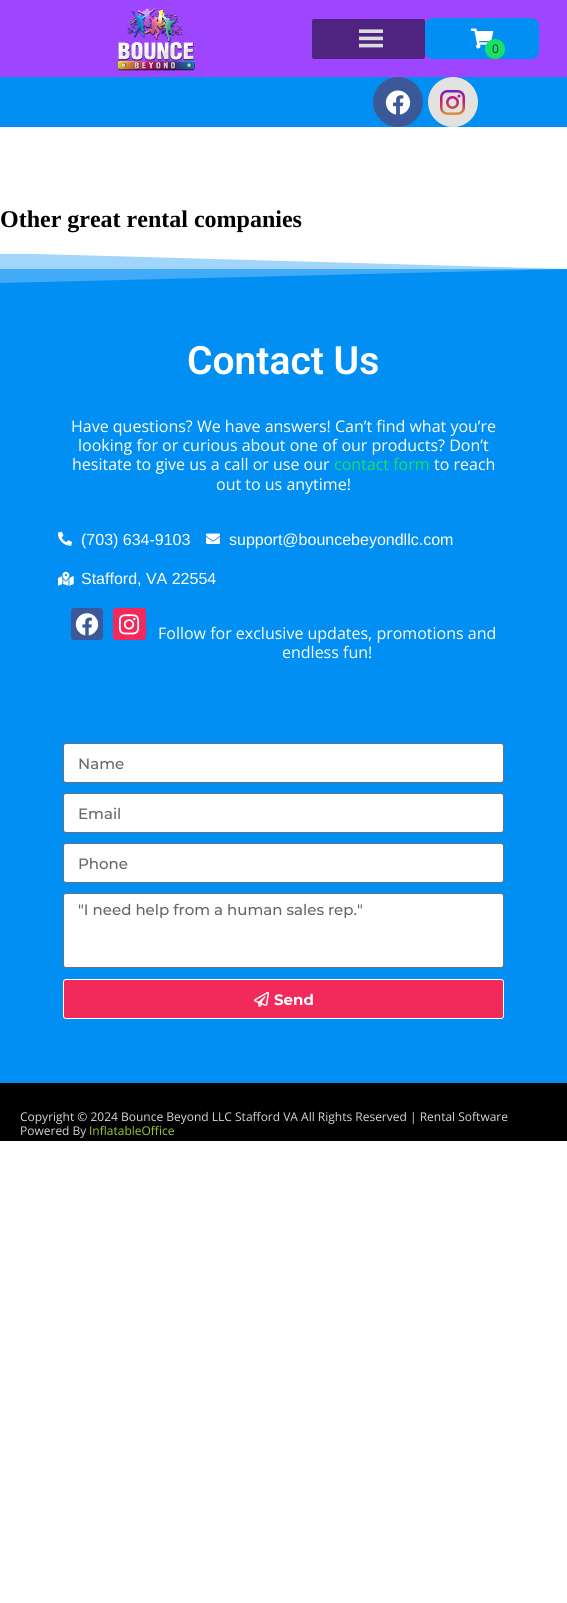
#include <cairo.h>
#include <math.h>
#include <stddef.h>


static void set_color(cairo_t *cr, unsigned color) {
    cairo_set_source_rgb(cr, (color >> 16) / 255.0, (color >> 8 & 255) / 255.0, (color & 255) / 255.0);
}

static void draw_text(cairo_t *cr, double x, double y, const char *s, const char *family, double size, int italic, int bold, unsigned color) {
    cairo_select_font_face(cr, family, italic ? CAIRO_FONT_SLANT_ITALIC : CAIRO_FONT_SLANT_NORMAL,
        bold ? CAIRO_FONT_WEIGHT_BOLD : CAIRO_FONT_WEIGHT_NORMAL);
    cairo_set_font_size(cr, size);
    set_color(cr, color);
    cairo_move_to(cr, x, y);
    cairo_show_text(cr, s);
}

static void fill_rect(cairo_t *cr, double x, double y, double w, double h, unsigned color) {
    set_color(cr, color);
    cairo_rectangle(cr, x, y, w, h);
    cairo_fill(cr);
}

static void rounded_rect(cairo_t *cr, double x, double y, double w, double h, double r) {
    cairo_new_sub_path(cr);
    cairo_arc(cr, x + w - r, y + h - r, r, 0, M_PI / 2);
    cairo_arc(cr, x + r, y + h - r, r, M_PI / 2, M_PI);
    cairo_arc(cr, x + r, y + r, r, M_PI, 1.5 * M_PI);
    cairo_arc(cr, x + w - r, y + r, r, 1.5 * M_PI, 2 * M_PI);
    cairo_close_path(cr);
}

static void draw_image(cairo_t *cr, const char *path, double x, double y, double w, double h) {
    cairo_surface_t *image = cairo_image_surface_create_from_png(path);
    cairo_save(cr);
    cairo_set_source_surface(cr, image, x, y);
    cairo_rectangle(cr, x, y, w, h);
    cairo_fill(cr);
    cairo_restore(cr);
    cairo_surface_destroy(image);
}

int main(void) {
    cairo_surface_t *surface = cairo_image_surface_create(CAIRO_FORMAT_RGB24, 567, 1603);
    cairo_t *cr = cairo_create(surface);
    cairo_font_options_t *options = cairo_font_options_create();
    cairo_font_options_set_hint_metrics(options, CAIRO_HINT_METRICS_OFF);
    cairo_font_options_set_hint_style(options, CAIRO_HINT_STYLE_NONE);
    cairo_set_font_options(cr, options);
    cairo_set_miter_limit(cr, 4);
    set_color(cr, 0xFFFFFF);
    cairo_paint(cr);
    fill_rect(cr, 0, 0, 567, 77, 0x9E46FF);
    draw_image(cr, "assets/img1.png", 117, 8, 78, 63);
    set_color(cr, 0x4F2380);
    rounded_rect(cr, 312, 19, 113, 40, 2);
    cairo_fill(cr);
    draw_image(cr, "assets/img2.png", 359, 29, 24, 19);
    set_color(cr, 0x028FF4);
    rounded_rect(cr, 425, 18, 114, 41, 8);
    cairo_fill(cr);
    draw_image(cr, "assets/img3.png", 470, 28, 24, 21);
    set_color(cr, 0x16E165);
    cairo_arc(cr, 495, 49, 10, 0, 2 * M_PI);
    cairo_fill(cr);
    draw_text(cr, 492, 53, "0", "Open Sans", 12, 0, 0, 0x2D2D2D);
    fill_rect(cr, 0, 77, 567, 50, 0x028FF4);
    set_color(cr, 0x3B5998);
    cairo_new_path(cr);
    cairo_arc(cr, 398, 102, 25, 0, 2 * M_PI);
    cairo_fill(cr);
    draw_image(cr, "assets/img4.png", 385, 90, 26, 25);
    set_color(cr, 0xE4E1E1);
    cairo_arc(cr, 453, 102, 25, 0, 2 * M_PI);
    cairo_fill(cr);
    draw_image(cr, "assets/img5.png", 440, 90, 25, 25);
    draw_text(cr, 0, 227, "Other great rental companies", "Liberation Serif", 24, 0, 1, 0x000000);
    fill_rect(cr, 0, 269, 567, 814, 0x028FF4);
    fill_rect(cr, 0, 254, 567, 15, 0x81C7FA);
    set_color(cr, 0xFFFFFF);
    cairo_new_path(cr);
    cairo_move_to(cr, 0, 253);
    cairo_line_to(cr, 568, 253);
    cairo_line_to(cr, 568, 269);
    cairo_close_path(cr);
    cairo_fill(cr);
    cairo_set_source_rgba(cr, 1, 1, 1, 0.25);
    cairo_new_path(cr);
    cairo_move_to(cr, 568, 253);
    cairo_line_to(cr, 0, 253);
    cairo_line_to(cr, 0, 283);
    cairo_line_to(cr, 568, 269);
    cairo_close_path(cr);
    cairo_fill(cr);
    draw_text(cr, 187, 374, "Contact Us", "Roboto SemiBold", 39, 0, 0, 0xFFFFFF);
    draw_text(cr, 71, 432, "Have questions? We have answers! Can’t find what you’re", "Open Sans", 16, 0, 0, 0xFFFFFF);
    draw_text(cr, 78, 451, "looking for or curious about one of our products? Don’t", "Open Sans", 16, 0, 0, 0xFFFFFF);
    draw_text(cr, 72, 470, "hesitate to give us a call or use our", "Open Sans", 16, 0, 0, 0xFFFFFF);
    draw_text(cr, 334, 470, "contact form", "Open Sans", 16, 0, 0, 0x16E165);
    draw_text(cr, 434, 470, "to reach", "Open Sans", 16, 0, 0, 0xFFFFFF);
    draw_text(cr, 216, 490, "out to us anytime!", "Open Sans", 16, 0, 0, 0xFFFFFF);
    draw_image(cr, "assets/img6.png", 58, 531, 14, 15);
    draw_text(cr, 81, 545, "(703) 634-9103", "Liberation Sans", 16, 0, 0, 0xFFFFFF);
    draw_image(cr, "assets/img7.png", 206, 533, 14, 11);
    draw_text(cr, 229, 545, "support@bouncebeyondllc.com", "Liberation Sans", 16, 0, 0, 0xFFFFFF);
    draw_image(cr, "assets/img8.png", 58, 571, 16, 15);
    draw_text(cr, 81, 584, "Stafford, VA 22554", "Liberation Sans", 16, 0, 0, 0xFFFFFF);
    set_color(cr, 0x3B5998);
    rounded_rect(cr, 71, 608, 32, 32, 3);
    cairo_fill(cr);
    draw_image(cr, "assets/img9.png", 75, 613, 24, 23);
    set_color(cr, 0xF2295B);
    rounded_rect(cr, 113, 608, 33, 32, 3);
    cairo_fill(cr);
    draw_image(cr, "assets/img10.png", 118, 614, 22, 21);
    draw_text(cr, 158, 639, "Follow for exclusive updates, promotions and", "Open Sans", 16, 0, 0, 0xFFFFFF);
    draw_text(cr, 282, 658, "endless fun!", "Open Sans", 16, 0, 0, 0xFFFFFF);
    rounded_rect(cr, 63.5, 743.5, 440, 39, 2.5);
    cairo_fill_preserve(cr);
    set_color(cr, 0x69727D);
    cairo_set_line_width(cr, 1);
    cairo_stroke(cr);
    draw_text(cr, 78, 769, "Name", "Montserrat Medium", 15, 0, 0, 0x666666);
    set_color(cr, 0xFFFFFF);
    rounded_rect(cr, 63.5, 793.5, 440, 39, 2.5);
    cairo_fill_preserve(cr);
    set_color(cr, 0x69727D);
    cairo_stroke(cr);
    draw_text(cr, 78, 819, "Email", "Montserrat Medium", 15, 0, 0, 0x666666);
    set_color(cr, 0xFFFFFF);
    rounded_rect(cr, 63.5, 843.5, 440, 39, 2.5);
    cairo_fill_preserve(cr);
    set_color(cr, 0x69727D);
    cairo_stroke(cr);
    draw_text(cr, 78, 869, "Phone", "Montserrat Medium", 15, 0, 0, 0x666666);
    set_color(cr, 0xFFFFFF);
    rounded_rect(cr, 63.5, 893.5, 440, 74, 2.5);
    cairo_fill_preserve(cr);
    set_color(cr, 0x69727D);
    cairo_stroke(cr);
    draw_text(cr, 78, 915, "\"I need help from a human sales rep.\"", "Montserrat Medium", 15, 0, 0, 0x666666);
    set_color(cr, 0xF2295B);
    rounded_rect(cr, 63.5, 979.5, 440, 39, 2.5);
    cairo_fill_preserve(cr);
    set_color(cr, 0xFFFFFF);
    cairo_stroke(cr);
    draw_image(cr, "assets/img11.png", 254, 991, 15, 16);
    draw_text(cr, 274, 1005, "Send", "Montserrat", 15, 0, 1, 0xFFFFFF);
    fill_rect(cr, 0, 1083, 567, 58, 0x000000);
    draw_text(cr, 20, 1121, "Copyright © 2024 Bounce Beyond LLC Stafford VA All Rights Reserved | Rental Software", "Open Sans", 12, 0, 0, 0xD7D7D7);
    draw_text(cr, 20, 1135, "Powered By", "Open Sans", 12, 0, 0, 0xD7D7D7);
    draw_text(cr, 89, 1135, "InflatableOffice", "Open Sans", 12, 0, 0, 0x9ACD32);
    cairo_surface_write_to_png(surface, "output.png");
    cairo_font_options_destroy(options);
    cairo_destroy(cr);
    cairo_surface_destroy(surface);
    return 0;
}
